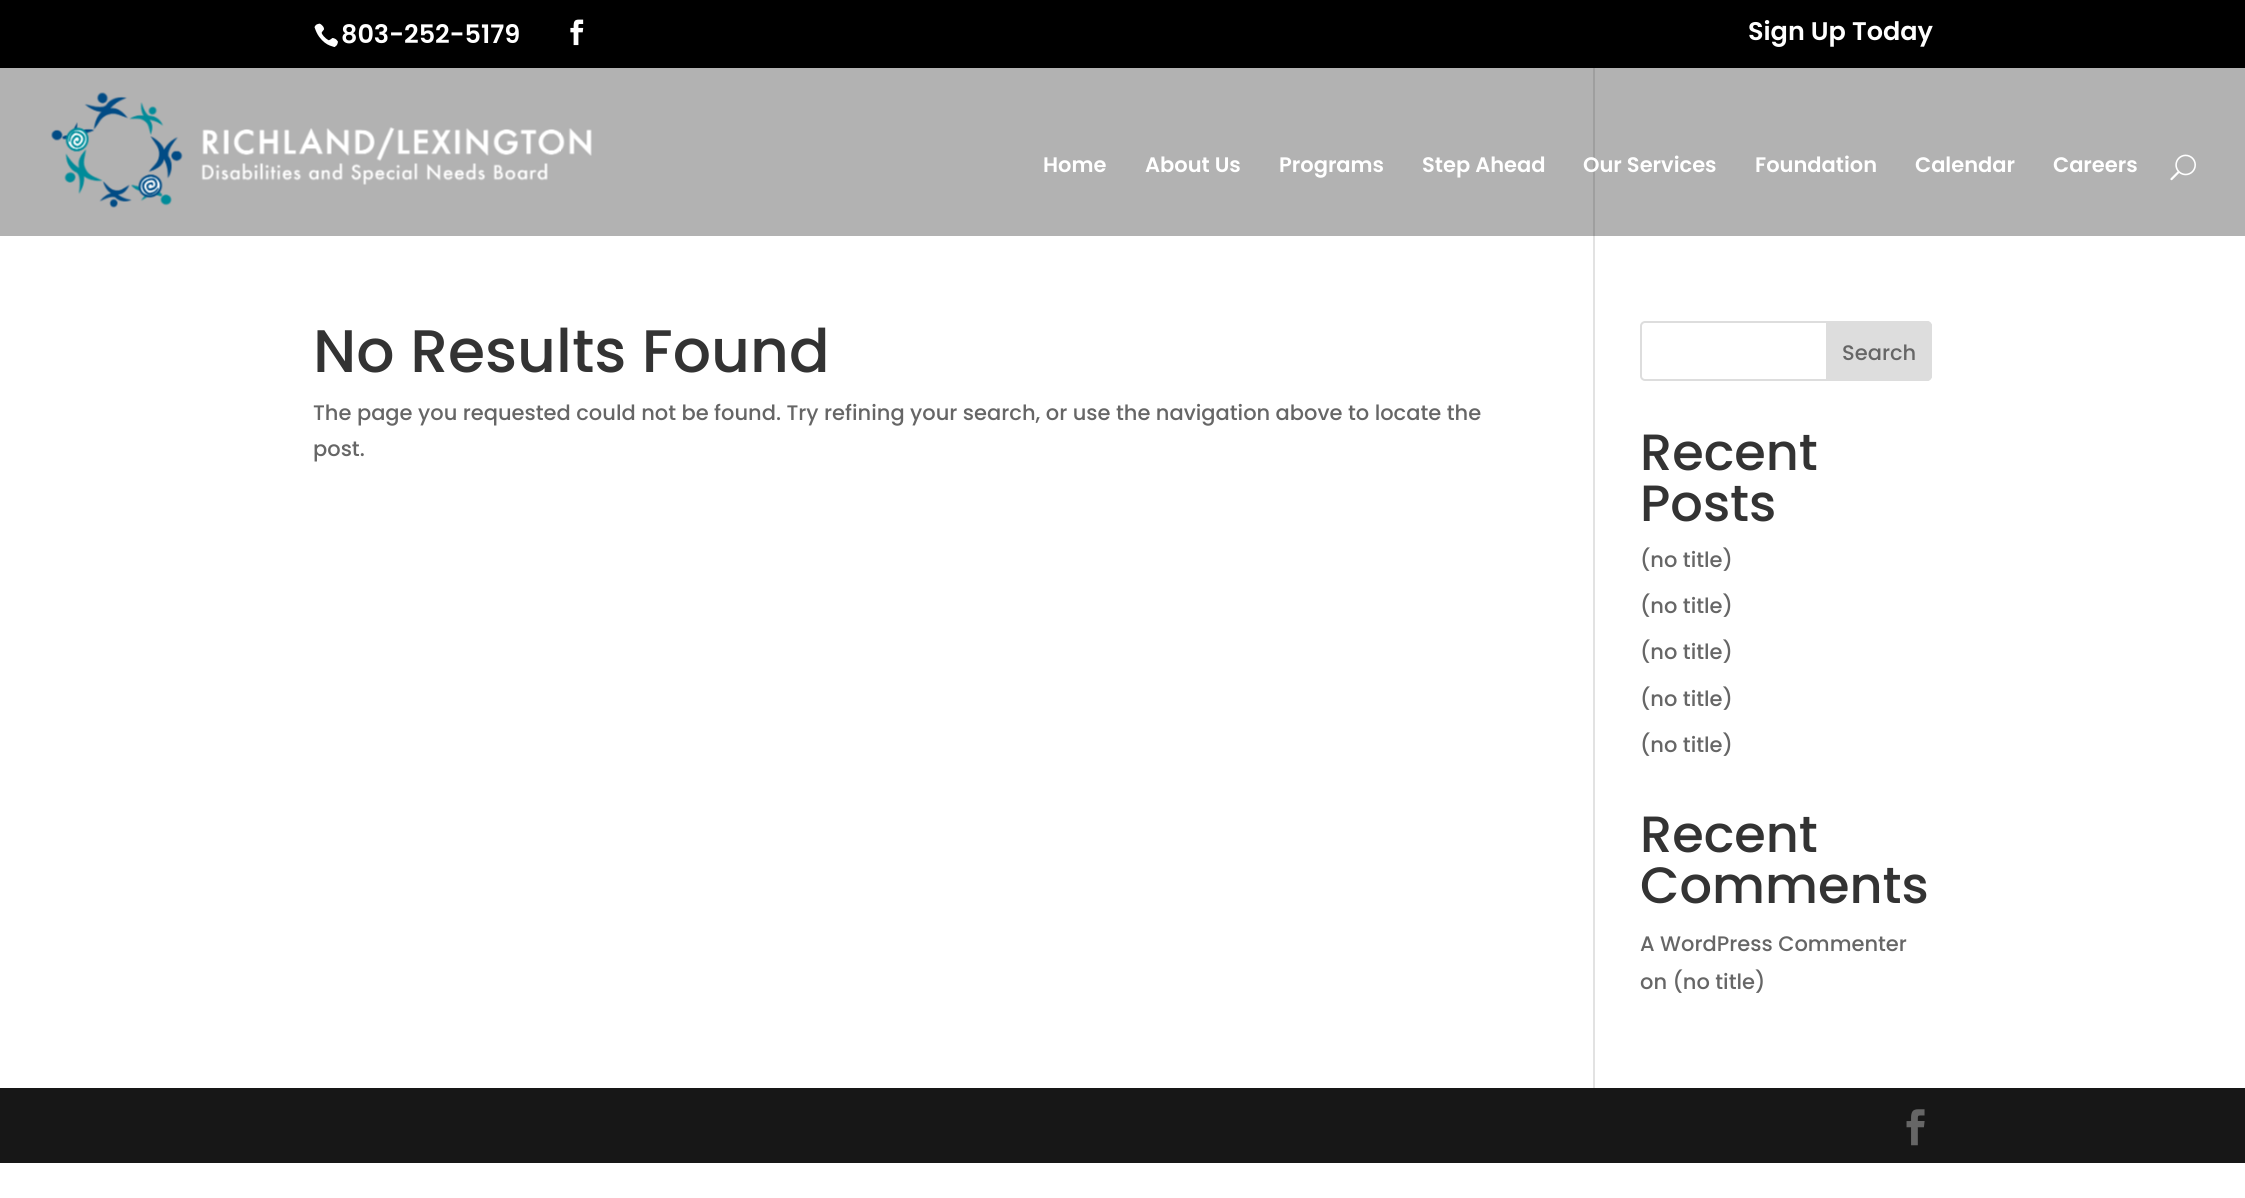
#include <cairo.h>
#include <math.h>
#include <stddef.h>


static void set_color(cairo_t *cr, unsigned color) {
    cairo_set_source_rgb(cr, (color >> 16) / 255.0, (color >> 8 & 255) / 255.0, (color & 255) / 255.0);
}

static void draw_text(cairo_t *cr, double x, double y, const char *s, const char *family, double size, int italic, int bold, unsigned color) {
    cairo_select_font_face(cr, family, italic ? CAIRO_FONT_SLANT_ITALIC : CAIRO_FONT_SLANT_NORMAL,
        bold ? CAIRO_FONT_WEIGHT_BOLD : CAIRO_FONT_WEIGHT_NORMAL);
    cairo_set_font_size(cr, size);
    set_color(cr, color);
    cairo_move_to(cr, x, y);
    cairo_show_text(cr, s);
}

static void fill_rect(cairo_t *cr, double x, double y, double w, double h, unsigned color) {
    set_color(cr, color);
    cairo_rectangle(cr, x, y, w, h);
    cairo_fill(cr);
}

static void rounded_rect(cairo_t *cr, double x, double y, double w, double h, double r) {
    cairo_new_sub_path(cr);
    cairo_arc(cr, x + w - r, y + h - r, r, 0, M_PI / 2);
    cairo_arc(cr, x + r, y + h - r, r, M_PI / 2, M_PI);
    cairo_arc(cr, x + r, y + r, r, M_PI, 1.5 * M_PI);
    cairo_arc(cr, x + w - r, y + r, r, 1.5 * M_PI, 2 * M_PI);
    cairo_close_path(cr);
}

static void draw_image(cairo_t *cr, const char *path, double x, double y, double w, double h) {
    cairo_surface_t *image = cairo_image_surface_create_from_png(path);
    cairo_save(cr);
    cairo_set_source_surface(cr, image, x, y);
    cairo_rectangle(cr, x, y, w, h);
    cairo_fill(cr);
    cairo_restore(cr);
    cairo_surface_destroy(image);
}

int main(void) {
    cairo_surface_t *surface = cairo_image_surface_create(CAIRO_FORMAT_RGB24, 2245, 1198);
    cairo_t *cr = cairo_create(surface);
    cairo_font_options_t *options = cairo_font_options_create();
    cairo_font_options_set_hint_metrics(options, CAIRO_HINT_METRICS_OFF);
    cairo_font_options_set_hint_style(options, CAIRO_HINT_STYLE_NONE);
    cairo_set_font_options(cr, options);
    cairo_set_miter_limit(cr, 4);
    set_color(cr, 0xFFFFFF);
    cairo_paint(cr);
    fill_rect(cr, 0, 68, 2245, 168, 0xB2B2B2);
    fill_rect(cr, 0, 0, 2245, 68, 0x000000);
    draw_image(cr, "assets/img1.png", 314, 23, 24, 24);
    draw_text(cr, 341, 43, "803-252-5179", "Poppins SemiBold", 25.5, 0, 0, 0xFFFFFF);
    draw_image(cr, "assets/img2.png", 570, 19, 14, 27);
    draw_text(cr, 1748, 40, "Sign Up Today", "Poppins SemiBold", 25.5, 0, 0, 0xFFFFFF);
    draw_image(cr, "assets/img3.png", 51, 92, 541, 116);
    draw_text(cr, 1043, 172, "Home", "Poppins SemiBold", 21, 0, 0, 0xFFFFFF);
    draw_text(cr, 1145, 172, "About Us", "Poppins SemiBold", 21, 0, 0, 0xFFFFFF);
    draw_text(cr, 1279, 172, "Programs", "Poppins SemiBold", 21, 0, 0, 0xFFFFFF);
    draw_text(cr, 1422, 172, "Step Ahead", "Poppins SemiBold", 21, 0, 0, 0xFFFFFF);
    fill_rect(cr, 1593, 68, 2, 168, 0x9F9F9F);
    draw_text(cr, 1583, 172, "Our Services", "Poppins SemiBold", 21, 0, 0, 0xFFFFFF);
    draw_text(cr, 1755, 172, "Foundation", "Poppins SemiBold", 21, 0, 0, 0xFFFFFF);
    draw_text(cr, 1915, 172, "Calendar", "Poppins SemiBold", 21, 0, 0, 0xFFFFFF);
    draw_text(cr, 2053, 172, "Careers", "Poppins SemiBold", 21, 0, 0, 0xFFFFFF);
    draw_image(cr, "assets/img4.png", 2170, 154, 26, 27);
    fill_rect(cr, 1593, 236, 2, 852, 0xE2E2E2);
    draw_text(cr, 313, 372, "No Results Found", "Poppins Medium", 60, 0, 0, 0x333333);
    draw_text(cr, 313, 420, "The page you requested could not be found. Try refining your search, or use the navigation above to locate the", "Poppins Medium", 21, 0, 0, 0x666666);
    draw_text(cr, 313, 456, "post.", "Poppins Medium", 21, 0, 0, 0x666666);
    rounded_rect(cr, 1641, 322, 290, 58, 4);
    set_color(cr, 0xDDDDDD);
    cairo_stroke(cr);
    cairo_new_path(cr);
    cairo_move_to(cr, 1827, 322);
    cairo_line_to(cr, 1927, 322);
    cairo_curve_to(cr, 1929, 322, 1931, 324, 1931, 326);
    cairo_line_to(cr, 1931, 376);
    cairo_curve_to(cr, 1931, 378, 1929, 380, 1927, 380);
    cairo_line_to(cr, 1827, 380);
    cairo_close_path(cr);
    cairo_fill_preserve(cr);
    cairo_stroke(cr);
    draw_text(cr, 1842, 360, "Search", "Poppins Medium", 21, 0, 0, 0x666666);
    draw_text(cr, 1640, 470, "Recent", "Poppins Medium", 51, 0, 0, 0x333333);
    draw_text(cr, 1640, 521, "Posts", "Poppins Medium", 51, 0, 0, 0x333333);
    draw_text(cr, 1640, 567, "(no title)", "Poppins Medium", 21, 0, 0, 0x666666);
    draw_text(cr, 1640, 613, "(no title)", "Poppins Medium", 21, 0, 0, 0x666666);
    draw_text(cr, 1640, 659, "(no title)", "Poppins Medium", 21, 0, 0, 0x666666);
    draw_text(cr, 1640, 706, "(no title)", "Poppins Medium", 21, 0, 0, 0x666666);
    draw_text(cr, 1640, 752, "(no title)", "Poppins Medium", 21, 0, 0, 0x666666);
    draw_text(cr, 1640, 852, "Recent", "Poppins Medium", 51, 0, 0, 0x333333);
    draw_text(cr, 1640, 903, "Comments", "Poppins Medium", 51, 0, 0, 0x333333);
    draw_text(cr, 1640, 951, "A WordPress Commenter", "Poppins Medium", 21, 0, 0, 0x666666);
    draw_text(cr, 1640, 989, "on (no title)", "Poppins Medium", 21, 0, 0, 0x666666);
    fill_rect(cr, 0, 1088, 2245, 75, 0x171717);
    draw_image(cr, "assets/img5.png", 1906, 1109, 19, 37);
    cairo_surface_write_to_png(surface, "output.png");
    cairo_font_options_destroy(options);
    cairo_destroy(cr);
    cairo_surface_destroy(surface);
    return 0;
}
